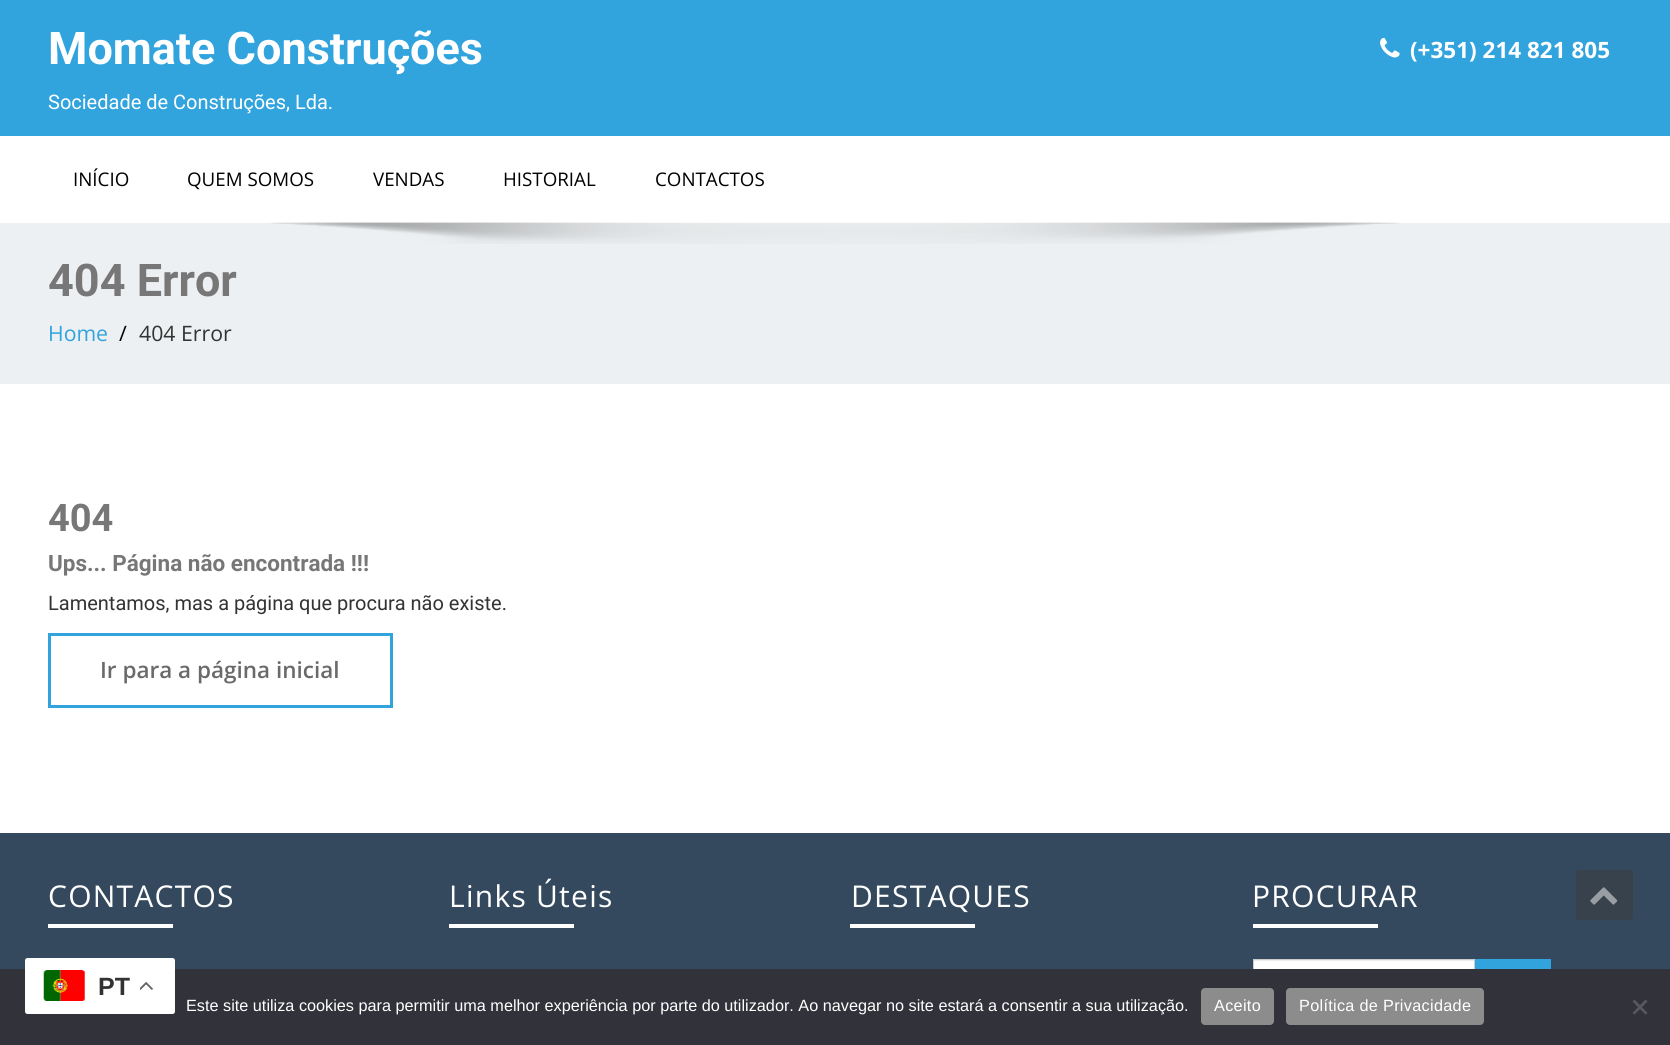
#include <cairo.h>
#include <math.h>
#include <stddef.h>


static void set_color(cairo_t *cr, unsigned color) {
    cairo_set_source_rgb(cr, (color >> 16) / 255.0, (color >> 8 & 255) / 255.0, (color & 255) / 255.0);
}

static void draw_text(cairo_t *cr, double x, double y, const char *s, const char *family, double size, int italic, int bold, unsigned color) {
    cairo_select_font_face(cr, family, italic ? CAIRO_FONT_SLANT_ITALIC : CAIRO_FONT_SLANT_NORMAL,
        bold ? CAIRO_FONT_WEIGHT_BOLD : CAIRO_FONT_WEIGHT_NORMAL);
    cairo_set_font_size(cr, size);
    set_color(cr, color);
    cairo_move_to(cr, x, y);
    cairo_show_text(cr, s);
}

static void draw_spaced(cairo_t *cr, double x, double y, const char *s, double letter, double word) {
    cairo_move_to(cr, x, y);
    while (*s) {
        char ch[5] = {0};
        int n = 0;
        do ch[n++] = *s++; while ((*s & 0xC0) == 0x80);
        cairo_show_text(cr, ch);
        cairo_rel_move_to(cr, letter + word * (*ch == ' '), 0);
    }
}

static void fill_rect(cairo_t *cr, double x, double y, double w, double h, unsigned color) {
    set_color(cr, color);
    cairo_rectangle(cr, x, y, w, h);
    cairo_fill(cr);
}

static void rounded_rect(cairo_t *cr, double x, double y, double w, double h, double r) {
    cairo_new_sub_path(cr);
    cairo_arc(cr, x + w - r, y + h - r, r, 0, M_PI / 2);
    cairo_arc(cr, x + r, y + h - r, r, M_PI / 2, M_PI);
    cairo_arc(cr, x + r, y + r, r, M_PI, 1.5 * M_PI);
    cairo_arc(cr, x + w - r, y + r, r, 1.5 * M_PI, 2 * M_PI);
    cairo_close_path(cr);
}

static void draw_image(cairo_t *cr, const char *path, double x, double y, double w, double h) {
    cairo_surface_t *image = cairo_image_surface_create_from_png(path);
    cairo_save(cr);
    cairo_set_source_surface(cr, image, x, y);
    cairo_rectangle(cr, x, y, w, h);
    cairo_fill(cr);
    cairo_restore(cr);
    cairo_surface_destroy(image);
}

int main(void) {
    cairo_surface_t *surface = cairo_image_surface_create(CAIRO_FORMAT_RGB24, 1670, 1045);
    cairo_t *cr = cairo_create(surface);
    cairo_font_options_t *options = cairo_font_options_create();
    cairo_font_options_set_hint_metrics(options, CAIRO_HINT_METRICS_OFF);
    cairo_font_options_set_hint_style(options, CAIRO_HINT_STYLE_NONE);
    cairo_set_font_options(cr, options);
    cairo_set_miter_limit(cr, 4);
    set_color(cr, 0xFFFFFF);
    cairo_paint(cr);
    fill_rect(cr, 0, 0, 1670, 136, 0x31A3DD);
    draw_text(cr, 48, 64, "Momate Construções", "Roboto", 45, 0, 1, 0xFFFFFF);
    draw_text(cr, 48, 109, "Sociedade de Construções, Lda.", "Roboto", 20, 0, 0, 0xFFFFFF);
    draw_image(cr, "assets/img1.png", 1380, 37, 20, 21);
    draw_text(cr, 1410, 58, "(+351) 214 821 805", "Open Sans", 22.5, 0, 1, 0xFFFFFF);
    draw_text(cr, 73, 186, "INÍCIO", "Open Sans", 18.75, 0, 0, 0x000000);
    draw_text(cr, 187, 186, "QUEM SOMOS", "Open Sans", 18.75, 0, 0, 0x000000);
    draw_text(cr, 373, 186, "VENDAS", "Open Sans", 18.75, 0, 0, 0x000000);
    draw_text(cr, 503, 186, "HISTORIAL", "Open Sans", 18.75, 0, 0, 0x000000);
    draw_text(cr, 655, 186, "CONTACTOS", "Open Sans", 18.75, 0, 0, 0x000000);
    fill_rect(cr, 0, 223, 1670, 161, 0xEDF0F2);
    draw_image(cr, "assets/img2.png", 271, 222, 1128, 22);
    draw_text(cr, 48, 296, "404 Error", "Roboto", 45, 0, 1, 0x777777);
    draw_text(cr, 48, 341, "Home", "Open Sans", 21.25, 0, 0, 0x31A3DD);
    draw_text(cr, 119, 341, "/", "Open Sans", 21.25, 0, 0, 0x000000);
    draw_text(cr, 139, 341, "404 Error", "Open Sans", 21.25, 0, 0, 0x333333);
    draw_text(cr, 48, 531, "404", "Roboto", 38, 0, 1, 0x777777);
    draw_text(cr, 48, 571, "Ups... Página não encontrada !!!", "Roboto", 22.5, 0, 1, 0x777777);
    draw_text(cr, 48, 610, "Lamentamos, mas a página que procura não existe.", "Roboto", 20, 0, 0, 0x333333);
    cairo_rectangle(cr, 49.5, 634.5, 342, 72);
    set_color(cr, 0x31A3DD);
    cairo_set_line_width(cr, 3);
    cairo_stroke(cr);
    draw_text(cr, 100, 678, "Ir para a página inicial", "Open Sans SemiBold", 22.5, 0, 0, 0x6A6A6A);
    fill_rect(cr, 0, 833, 1670, 136, 0x34495E);
    cairo_select_font_face(cr, "Open Sans", CAIRO_FONT_SLANT_NORMAL, CAIRO_FONT_WEIGHT_NORMAL);
    cairo_set_font_size(cr, 30);
    set_color(cr, 0xFFFFFF);
    draw_spaced(cr, 48, 907, "CONTACTOS", 1.25, 0);
    fill_rect(cr, 48, 924, 125, 4, 0xFFFFFF);
    draw_spaced(cr, 449, 907, "Links Úteis", 1.25, 0);
    fill_rect(cr, 449, 924, 125, 4, 0xFFFFFF);
    draw_spaced(cr, 851, 907, "DESTAQUES", 1.25, 0);
    fill_rect(cr, 850, 924, 125, 4, 0xFFFFFF);
    draw_spaced(cr, 1252, 907, "PROCURAR", 1.25, 0);
    fill_rect(cr, 1253, 924, 125, 4, 0xFFFFFF);
    fill_rect(cr, 1254, 961, 220, 8, 0xFFFFFF);
    fill_rect(cr, 1254, 960, 220, 1, 0xECECEC);
    cairo_rectangle(cr, 1253.5, 959.5, 221, 55);
    set_color(cr, 0xCCCCCC);
    cairo_set_line_width(cr, 1);
    cairo_stroke(cr);
    fill_rect(cr, 1475, 959, 76, 10, 0x31A3DD);
    set_color(cr, 0x38424D);
    rounded_rect(cr, 1576, 870, 57, 50, 2.5);
    cairo_fill(cr);
    draw_image(cr, "assets/img3.png", 1590, 887, 28, 18);
    fill_rect(cr, 0, 969, 1670, 76, 0x32323A);
    set_color(cr, 0xFFFFFF);
    rounded_rect(cr, 25, 958, 150, 56, 2.5);
    cairo_fill(cr);
    draw_image(cr, "assets/img4.png", 43, 970, 42, 31);
    draw_text(cr, 98, 995, "PT", "Liberation Sans", 25, 0, 1, 0x333333);
    draw_image(cr, "assets/img5.png", 140, 982, 13, 8);
    draw_text(cr, 186, 1011, "Este site utiliza cookies para permitir uma melhor experiência por parte do utilizador. Ao navegar no site estará a consentir a sua utilização.", "Liberation Sans", 16.25, 0, 0, 0xFFFFFF);
    set_color(cr, 0x8C8C8C);
    rounded_rect(cr, 1201, 988, 73, 37, 4);
    cairo_fill(cr);
    set_color(cr, 0xFFFFFF);
    draw_spaced(cr, 1214, 1011, "Aceito", 0.3, 0);
    set_color(cr, 0x8C8C8C);
    rounded_rect(cr, 1286, 988, 198, 37, 4);
    cairo_fill(cr);
    set_color(cr, 0xFFFFFF);
    draw_spaced(cr, 1299, 1011, "Política de Privacidade", 0.3, 0);
    set_color(cr, 0x59595D);
    cairo_new_path(cr);
    cairo_move_to(cr, 1645.5, 999.5);
    cairo_line_to(cr, 1647.5, 1001.5);
    cairo_line_to(cr, 1634.5, 1014.5);
    cairo_line_to(cr, 1632.5, 1013);
    cairo_close_path(cr);
    cairo_fill(cr);
    cairo_new_path(cr);
    cairo_move_to(cr, 1632.5, 1001.5);
    cairo_line_to(cr, 1634.5, 999.5);
    cairo_line_to(cr, 1647.5, 1013);
    cairo_line_to(cr, 1645.5, 1014.5);
    cairo_close_path(cr);
    cairo_fill(cr);
    cairo_surface_write_to_png(surface, "output.png");
    cairo_font_options_destroy(options);
    cairo_destroy(cr);
    cairo_surface_destroy(surface);
    return 0;
}
